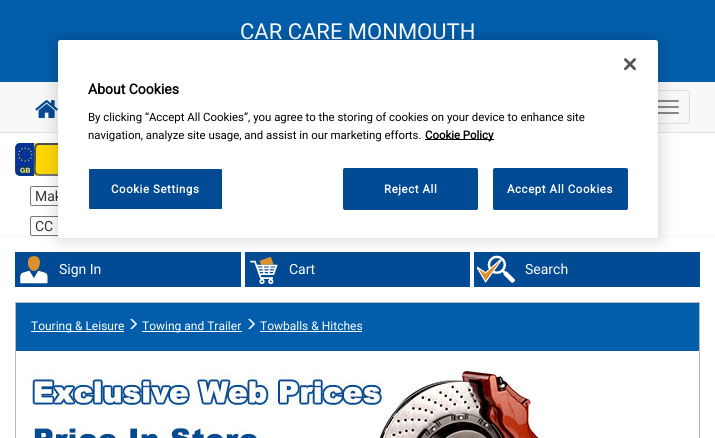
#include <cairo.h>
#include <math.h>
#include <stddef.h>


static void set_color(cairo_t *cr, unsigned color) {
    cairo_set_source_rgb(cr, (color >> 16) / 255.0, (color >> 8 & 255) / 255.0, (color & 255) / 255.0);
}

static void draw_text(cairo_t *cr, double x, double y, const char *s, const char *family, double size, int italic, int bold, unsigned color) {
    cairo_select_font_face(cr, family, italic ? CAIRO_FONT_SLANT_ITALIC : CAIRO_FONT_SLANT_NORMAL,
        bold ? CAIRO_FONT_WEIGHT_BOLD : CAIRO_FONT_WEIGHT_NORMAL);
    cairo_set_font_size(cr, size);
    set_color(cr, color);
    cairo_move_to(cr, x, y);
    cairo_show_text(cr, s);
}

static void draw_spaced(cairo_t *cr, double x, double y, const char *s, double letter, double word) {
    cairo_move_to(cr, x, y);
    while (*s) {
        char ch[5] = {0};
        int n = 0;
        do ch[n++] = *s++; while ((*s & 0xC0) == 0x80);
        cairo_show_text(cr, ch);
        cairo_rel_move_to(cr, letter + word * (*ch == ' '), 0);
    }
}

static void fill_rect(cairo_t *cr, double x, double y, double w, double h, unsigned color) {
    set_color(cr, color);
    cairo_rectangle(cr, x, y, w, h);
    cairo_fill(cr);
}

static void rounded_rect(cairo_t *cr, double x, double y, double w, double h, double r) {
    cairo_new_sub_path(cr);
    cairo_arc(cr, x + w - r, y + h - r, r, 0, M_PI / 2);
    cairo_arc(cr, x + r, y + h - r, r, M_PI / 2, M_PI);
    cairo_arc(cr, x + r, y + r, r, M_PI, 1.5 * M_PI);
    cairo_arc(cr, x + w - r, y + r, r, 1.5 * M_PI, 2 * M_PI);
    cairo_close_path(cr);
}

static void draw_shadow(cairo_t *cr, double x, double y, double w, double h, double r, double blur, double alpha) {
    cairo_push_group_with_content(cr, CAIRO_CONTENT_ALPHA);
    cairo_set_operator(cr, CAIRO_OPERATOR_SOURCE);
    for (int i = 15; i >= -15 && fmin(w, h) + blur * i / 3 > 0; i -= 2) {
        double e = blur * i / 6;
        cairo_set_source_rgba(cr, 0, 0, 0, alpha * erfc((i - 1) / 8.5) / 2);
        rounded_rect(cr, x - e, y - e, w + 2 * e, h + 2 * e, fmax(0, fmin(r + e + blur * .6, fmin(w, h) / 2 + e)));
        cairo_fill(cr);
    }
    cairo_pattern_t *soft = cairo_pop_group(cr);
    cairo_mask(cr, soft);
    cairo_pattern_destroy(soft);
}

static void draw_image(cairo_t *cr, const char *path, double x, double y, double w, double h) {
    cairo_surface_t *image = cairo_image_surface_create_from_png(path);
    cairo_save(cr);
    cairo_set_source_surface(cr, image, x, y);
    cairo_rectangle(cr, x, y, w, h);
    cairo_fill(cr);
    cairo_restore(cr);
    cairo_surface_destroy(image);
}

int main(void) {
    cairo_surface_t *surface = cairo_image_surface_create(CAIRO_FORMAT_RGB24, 715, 438);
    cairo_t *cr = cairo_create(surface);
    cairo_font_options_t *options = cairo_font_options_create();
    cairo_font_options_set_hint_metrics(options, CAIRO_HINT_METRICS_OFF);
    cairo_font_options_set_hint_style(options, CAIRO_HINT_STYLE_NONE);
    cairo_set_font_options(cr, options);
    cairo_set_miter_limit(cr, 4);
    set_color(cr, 0xF8F8F8);
    cairo_paint(cr);
    fill_rect(cr, 0, 0, 715, 82, 0x025DAA);
    draw_text(cr, 240, 39, "CAR CARE MONMOUTH", "Roboto", 22, 0, 0, 0xFFFFFF);
    fill_rect(cr, 0, 132, 715, 1, 0xE2E2E2);
    draw_image(cr, "assets/img1.png", 35, 100, 23, 18);
    rounded_rect(cr, 646.5, 90.5, 43, 33, 3.5);
    set_color(cr, 0xDDDDDD);
    cairo_set_line_width(cr, 1);
    cairo_stroke(cr);
    set_color(cr, 0x888888);
    rounded_rect(cr, 657, 100, 22, 2, 1);
    cairo_fill(cr);
    rounded_rect(cr, 657, 106, 22, 2, 1);
    cairo_fill(cr);
    rounded_rect(cr, 657, 112, 22, 2, 1);
    cairo_fill(cr);
    fill_rect(cr, 0, 133, 715, 103, 0xFFFFFF);
    set_color(cr, 0xFFD800);
    rounded_rect(cr, 15, 143, 582, 33, 5);
    cairo_fill(cr);
    draw_image(cr, "assets/img2.png", 15, 143, 19, 33);
    cairo_new_path(cr);
    cairo_move_to(cr, 595, 145);
    cairo_curve_to(cr, 597.5, 147.5, 596, 156.5, 596, 159.5);
    cairo_line_to(cr, 596, 167);
    cairo_curve_to(cr, 596, 170, 596.5, 175, 592, 175);
    cairo_line_to(cr, 39, 175);
    cairo_line_to(cr, 36, 174);
    set_color(cr, 0x767676);
    cairo_set_line_width(cr, 2);
    cairo_stroke(cr);
    cairo_new_path(cr);
    cairo_move_to(cr, 36, 174);
    cairo_curve_to(cr, 33.5, 171.5, 35, 162.5, 35, 159.5);
    cairo_line_to(cr, 35, 152);
    cairo_curve_to(cr, 35, 149, 34.5, 144, 39, 144);
    cairo_line_to(cr, 592, 144);
    cairo_line_to(cr, 595, 145);
    set_color(cr, 0x4F4F4F);
    cairo_stroke(cr);
    rounded_rect(cr, 30.5, 186.5, 189, 19, 1.5);
    set_color(cr, 0x767676);
    cairo_set_line_width(cr, 1);
    cairo_stroke(cr);
    draw_text(cr, 35, 201, "Mak", "Roboto", 14, 0, 0, 0x333333);
    rounded_rect(cr, 30.5, 216.5, 189, 19, 1.5);
    set_color(cr, 0x767676);
    cairo_stroke(cr);
    draw_text(cr, 35, 231, "CC", "Roboto", 14, 0, 0, 0x333333);
    fill_rect(cr, 0, 237, 715, 201, 0xFFFFFF);
    fill_rect(cr, 15, 252, 226, 35, 0x024A93);
    draw_image(cr, "assets/img3.png", 20, 256, 28, 28);
    draw_text(cr, 59, 274, "Sign In", "Roboto", 14, 0, 0, 0xFFFFFF);
    fill_rect(cr, 245, 252, 225, 35, 0x024A93);
    draw_image(cr, "assets/img4.png", 250, 256, 28, 28);
    draw_text(cr, 289, 274, "Cart", "Roboto", 14, 0, 0, 0xFFFFFF);
    fill_rect(cr, 474, 252, 226, 35, 0x024A93);
    draw_image(cr, "assets/img5.png", 477, 255, 38, 28);
    draw_text(cr, 525, 274, "Search", "Roboto", 14, 0, 0, 0xFFFFFF);
    cairo_rectangle(cr, 15.5, 302.5, 684, 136);
    set_color(cr, 0xB8B8B8);
    cairo_stroke(cr);
    fill_rect(cr, 16, 303, 683, 48, 0x025DAA);
    fill_rect(cr, 31, 331, 93, 1, 0xFFFFFF);
    draw_text(cr, 31, 330, "Touring & Leisure", "Roboto", 12, 0, 0, 0xFFFFFF);
    draw_image(cr, "assets/img6.png", 130, 319, 7, 10);
    fill_rect(cr, 142, 331, 100, 1, 0xFFFFFF);
    draw_text(cr, 142, 330, "Towing and Trailer", "Roboto", 12, 0, 0, 0xFFFFFF);
    draw_image(cr, "assets/img6.png", 248, 319, 7, 10);
    draw_text(cr, 260, 330, "Towballs & Hitches", "Roboto", 12, 0, 0, 0xFFFFFF);
    fill_rect(cr, 260, 331, 102, 1, 0xFFFFFF);
    draw_image(cr, "assets/img7.png", 31, 366, 512, 72);
    set_color(cr, 0x000000);
    draw_shadow(cr, 58, 40, 600, 198, 2.5, 9, 0.2);
    set_color(cr, 0xFFFFFF);
    rounded_rect(cr, 58, 40, 600, 198, 2.5);
    cairo_fill(cr);
    draw_image(cr, "assets/img8.png", 624, 58, 12, 12);
    draw_text(cr, 88, 94, "About Cookies", "Roboto", 14, 0, 1, 0x000000);
    draw_text(cr, 88, 121, "By clicking “Accept All Cookies”, you agree to the storing of cookies on your device to enhance site", "Roboto", 11.4, 0, 0, 0x000000);
    draw_text(cr, 88, 139, "navigation, analyze site usage, and assist in our marketing efforts.", "Roboto", 11.4, 0, 0, 0x000000);
    fill_rect(cr, 425, 139, 69, 1, 0x000000);
    draw_text(cr, 425, 139, "Cookie Policy", "Roboto", 11.4, 0, 1, 0x000000);
    set_color(cr, 0x024A93);
    rounded_rect(cr, 88.5, 168.5, 134, 41, 1.5);
    cairo_fill_preserve(cr);
    set_color(cr, 0xFFFFFF);
    cairo_stroke(cr);
    draw_spaced(cr, 111, 193, "Cookie Settings", 0.6, 0);
    set_color(cr, 0x024A93);
    rounded_rect(cr, 343.5, 168.5, 134, 41, 1.5);
    cairo_fill_preserve(cr);
    cairo_stroke(cr);
    set_color(cr, 0xFFFFFF);
    draw_spaced(cr, 384, 193, "Reject All", 0.6, 0);
    set_color(cr, 0x024A93);
    rounded_rect(cr, 493.5, 168.5, 134, 41, 1.5);
    cairo_fill_preserve(cr);
    cairo_stroke(cr);
    set_color(cr, 0xFFFFFF);
    draw_spaced(cr, 507, 193, "Accept All Cookies", 0.6, 0);
    cairo_surface_write_to_png(surface, "output.png");
    cairo_font_options_destroy(options);
    cairo_destroy(cr);
    cairo_surface_destroy(surface);
    return 0;
}
